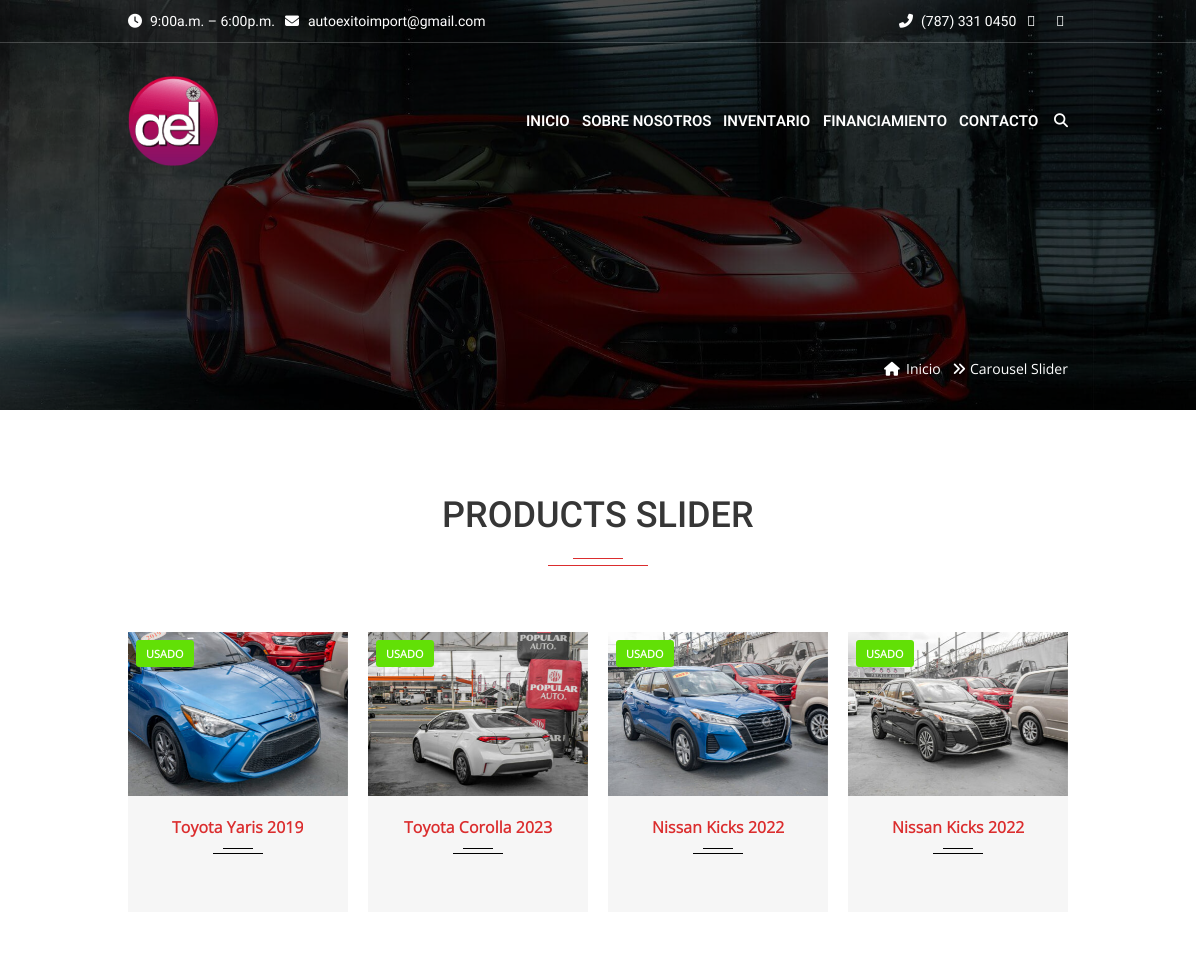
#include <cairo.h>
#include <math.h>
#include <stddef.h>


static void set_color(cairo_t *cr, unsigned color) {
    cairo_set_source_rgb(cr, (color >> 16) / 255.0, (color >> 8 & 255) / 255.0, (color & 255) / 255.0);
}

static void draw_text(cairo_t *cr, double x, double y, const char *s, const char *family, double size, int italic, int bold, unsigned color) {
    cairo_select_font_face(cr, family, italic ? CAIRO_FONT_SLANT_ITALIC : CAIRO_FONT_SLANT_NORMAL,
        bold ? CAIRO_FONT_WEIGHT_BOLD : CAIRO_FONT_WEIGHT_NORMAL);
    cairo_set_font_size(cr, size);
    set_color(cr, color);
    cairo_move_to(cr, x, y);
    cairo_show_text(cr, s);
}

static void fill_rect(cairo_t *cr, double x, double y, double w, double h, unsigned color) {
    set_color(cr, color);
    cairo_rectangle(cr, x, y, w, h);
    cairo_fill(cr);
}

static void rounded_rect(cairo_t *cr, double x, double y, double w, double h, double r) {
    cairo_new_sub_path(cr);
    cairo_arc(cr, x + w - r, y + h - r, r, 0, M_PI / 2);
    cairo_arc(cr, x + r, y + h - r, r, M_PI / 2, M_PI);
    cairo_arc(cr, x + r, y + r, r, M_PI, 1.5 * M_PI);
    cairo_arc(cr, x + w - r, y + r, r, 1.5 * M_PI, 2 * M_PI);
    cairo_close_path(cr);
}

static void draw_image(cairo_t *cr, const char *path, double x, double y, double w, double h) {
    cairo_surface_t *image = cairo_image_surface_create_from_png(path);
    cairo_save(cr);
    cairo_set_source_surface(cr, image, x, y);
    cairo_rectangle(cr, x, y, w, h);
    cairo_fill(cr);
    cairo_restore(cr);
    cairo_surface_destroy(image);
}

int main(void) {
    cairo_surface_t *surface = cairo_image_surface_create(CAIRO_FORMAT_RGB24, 1196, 953);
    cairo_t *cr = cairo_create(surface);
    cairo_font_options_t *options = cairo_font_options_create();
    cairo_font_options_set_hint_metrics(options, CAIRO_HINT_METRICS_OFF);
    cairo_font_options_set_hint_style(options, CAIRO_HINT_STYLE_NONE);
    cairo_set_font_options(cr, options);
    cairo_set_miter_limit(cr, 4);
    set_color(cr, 0xFFFFFF);
    cairo_paint(cr);
    draw_image(cr, "assets/img8.png", 0, 0, 1196, 410);
    cairo_set_source_rgba(cr, 1, 1, 1, 0.2);
    cairo_rectangle(cr, 0, 42, 1196, 1);
    cairo_fill(cr);
    draw_image(cr, "assets/img1.png", 128, 13, 14, 15);
    draw_text(cr, 150, 26, "9:00a.m. – 6:00p.m.", "Roboto", 14, 0, 0, 0xFFFFFF);
    draw_image(cr, "assets/img2.png", 285, 15, 14, 11);
    draw_text(cr, 308, 26, "autoexitoimport@gmail.com", "Roboto", 14, 0, 0, 0xFFFFFF);
    draw_image(cr, "assets/img3.png", 899, 13, 14, 15);
    draw_text(cr, 921, 26, "(787) 331 0450", "Roboto", 14, 0, 0, 0xFFFFFF);
    draw_image(cr, "assets/img4.png", 1028, 16, 7, 10);
    draw_image(cr, "assets/img5.png", 1057, 16, 7, 10);
    draw_image(cr, "assets/img6.png", 128, 76, 90, 90);
    draw_text(cr, 526, 126, "INICIO", "Roboto SemiBold", 15, 0, 0, 0xFFFFFF);
    draw_text(cr, 582, 126, "SOBRE NOSOTROS", "Roboto SemiBold", 15, 0, 0, 0xFFFFFF);
    draw_text(cr, 723, 126, "INVENTARIO", "Roboto SemiBold", 15, 0, 0, 0xFFFFFF);
    draw_text(cr, 823, 126, "FINANCIAMIENTO", "Roboto SemiBold", 15, 0, 0, 0xFFFFFF);
    draw_text(cr, 959, 126, "CONTACTO", "Roboto SemiBold", 15, 0, 0, 0xFFFFFF);
    draw_image(cr, "assets/img7.png", 1054, 113, 14, 15);
    draw_image(cr, "assets/img9.png", 884, 361, 16, 15);
    draw_text(cr, 906, 374, "Inicio", "Open Sans", 14, 0, 0, 0xFFFFFF);
    draw_image(cr, "assets/img10.png", 953, 363, 13, 11);
    draw_text(cr, 970, 374, "Carousel Slider", "Open Sans", 14, 0, 0, 0xFFFFFF);
    draw_text(cr, 442, 527, "PRODUCTS SLIDER", "Roboto Medium", 36, 0, 0, 0x363636);
    fill_rect(cr, 573, 558, 50, 1, 0xDB2D2E);
    fill_rect(cr, 548, 565, 100, 1, 0xDB2D2E);
    fill_rect(cr, 128, 632, 220, 280, 0xF6F6F6);
    draw_image(cr, "assets/img11.png", 128, 632, 220, 164);
    set_color(cr, 0x62E006);
    rounded_rect(cr, 136, 640, 58, 27, 3);
    cairo_fill(cr);
    draw_text(cr, 146, 658, "USADO", "Open Sans", 11, 0, 1, 0xFFFFFF);
    draw_text(cr, 172, 833, "Toyota Yaris 2019", "Open Sans", 16, 0, 1, 0xDB2D2E);
    fill_rect(cr, 223, 848, 30, 1, 0x000000);
    fill_rect(cr, 213, 853, 50, 1, 0x000000);
    fill_rect(cr, 368, 632, 220, 280, 0xF6F6F6);
    draw_image(cr, "assets/img12.png", 368, 632, 220, 164);
    set_color(cr, 0x62E006);
    rounded_rect(cr, 376, 640, 58, 27, 3);
    cairo_fill(cr);
    draw_text(cr, 386, 658, "USADO", "Open Sans", 11, 0, 1, 0xFFFFFF);
    draw_text(cr, 404, 833, "Toyota Corolla 2023", "Open Sans", 16, 0, 1, 0xDB2D2E);
    fill_rect(cr, 463, 848, 30, 1, 0x000000);
    fill_rect(cr, 453, 853, 50, 1, 0x000000);
    fill_rect(cr, 608, 632, 220, 280, 0xF6F6F6);
    draw_image(cr, "assets/img13.png", 608, 632, 220, 164);
    set_color(cr, 0x62E006);
    rounded_rect(cr, 616, 640, 58, 27, 3);
    cairo_fill(cr);
    draw_text(cr, 626, 658, "USADO", "Open Sans", 11, 0, 1, 0xFFFFFF);
    draw_text(cr, 652, 833, "Nissan Kicks 2022", "Open Sans", 16, 0, 1, 0xDB2D2E);
    fill_rect(cr, 703, 848, 30, 1, 0x000000);
    fill_rect(cr, 693, 853, 50, 1, 0x000000);
    fill_rect(cr, 848, 632, 220, 280, 0xF6F6F6);
    draw_image(cr, "assets/img14.png", 848, 632, 220, 164);
    set_color(cr, 0x62E006);
    rounded_rect(cr, 856, 640, 58, 27, 3);
    cairo_fill(cr);
    draw_text(cr, 866, 658, "USADO", "Open Sans", 11, 0, 1, 0xFFFFFF);
    draw_text(cr, 892, 833, "Nissan Kicks 2022", "Open Sans", 16, 0, 1, 0xDB2D2E);
    fill_rect(cr, 943, 848, 30, 1, 0x000000);
    fill_rect(cr, 933, 853, 50, 1, 0x000000);
    cairo_surface_write_to_png(surface, "output.png");
    cairo_font_options_destroy(options);
    cairo_destroy(cr);
    cairo_surface_destroy(surface);
    return 0;
}
